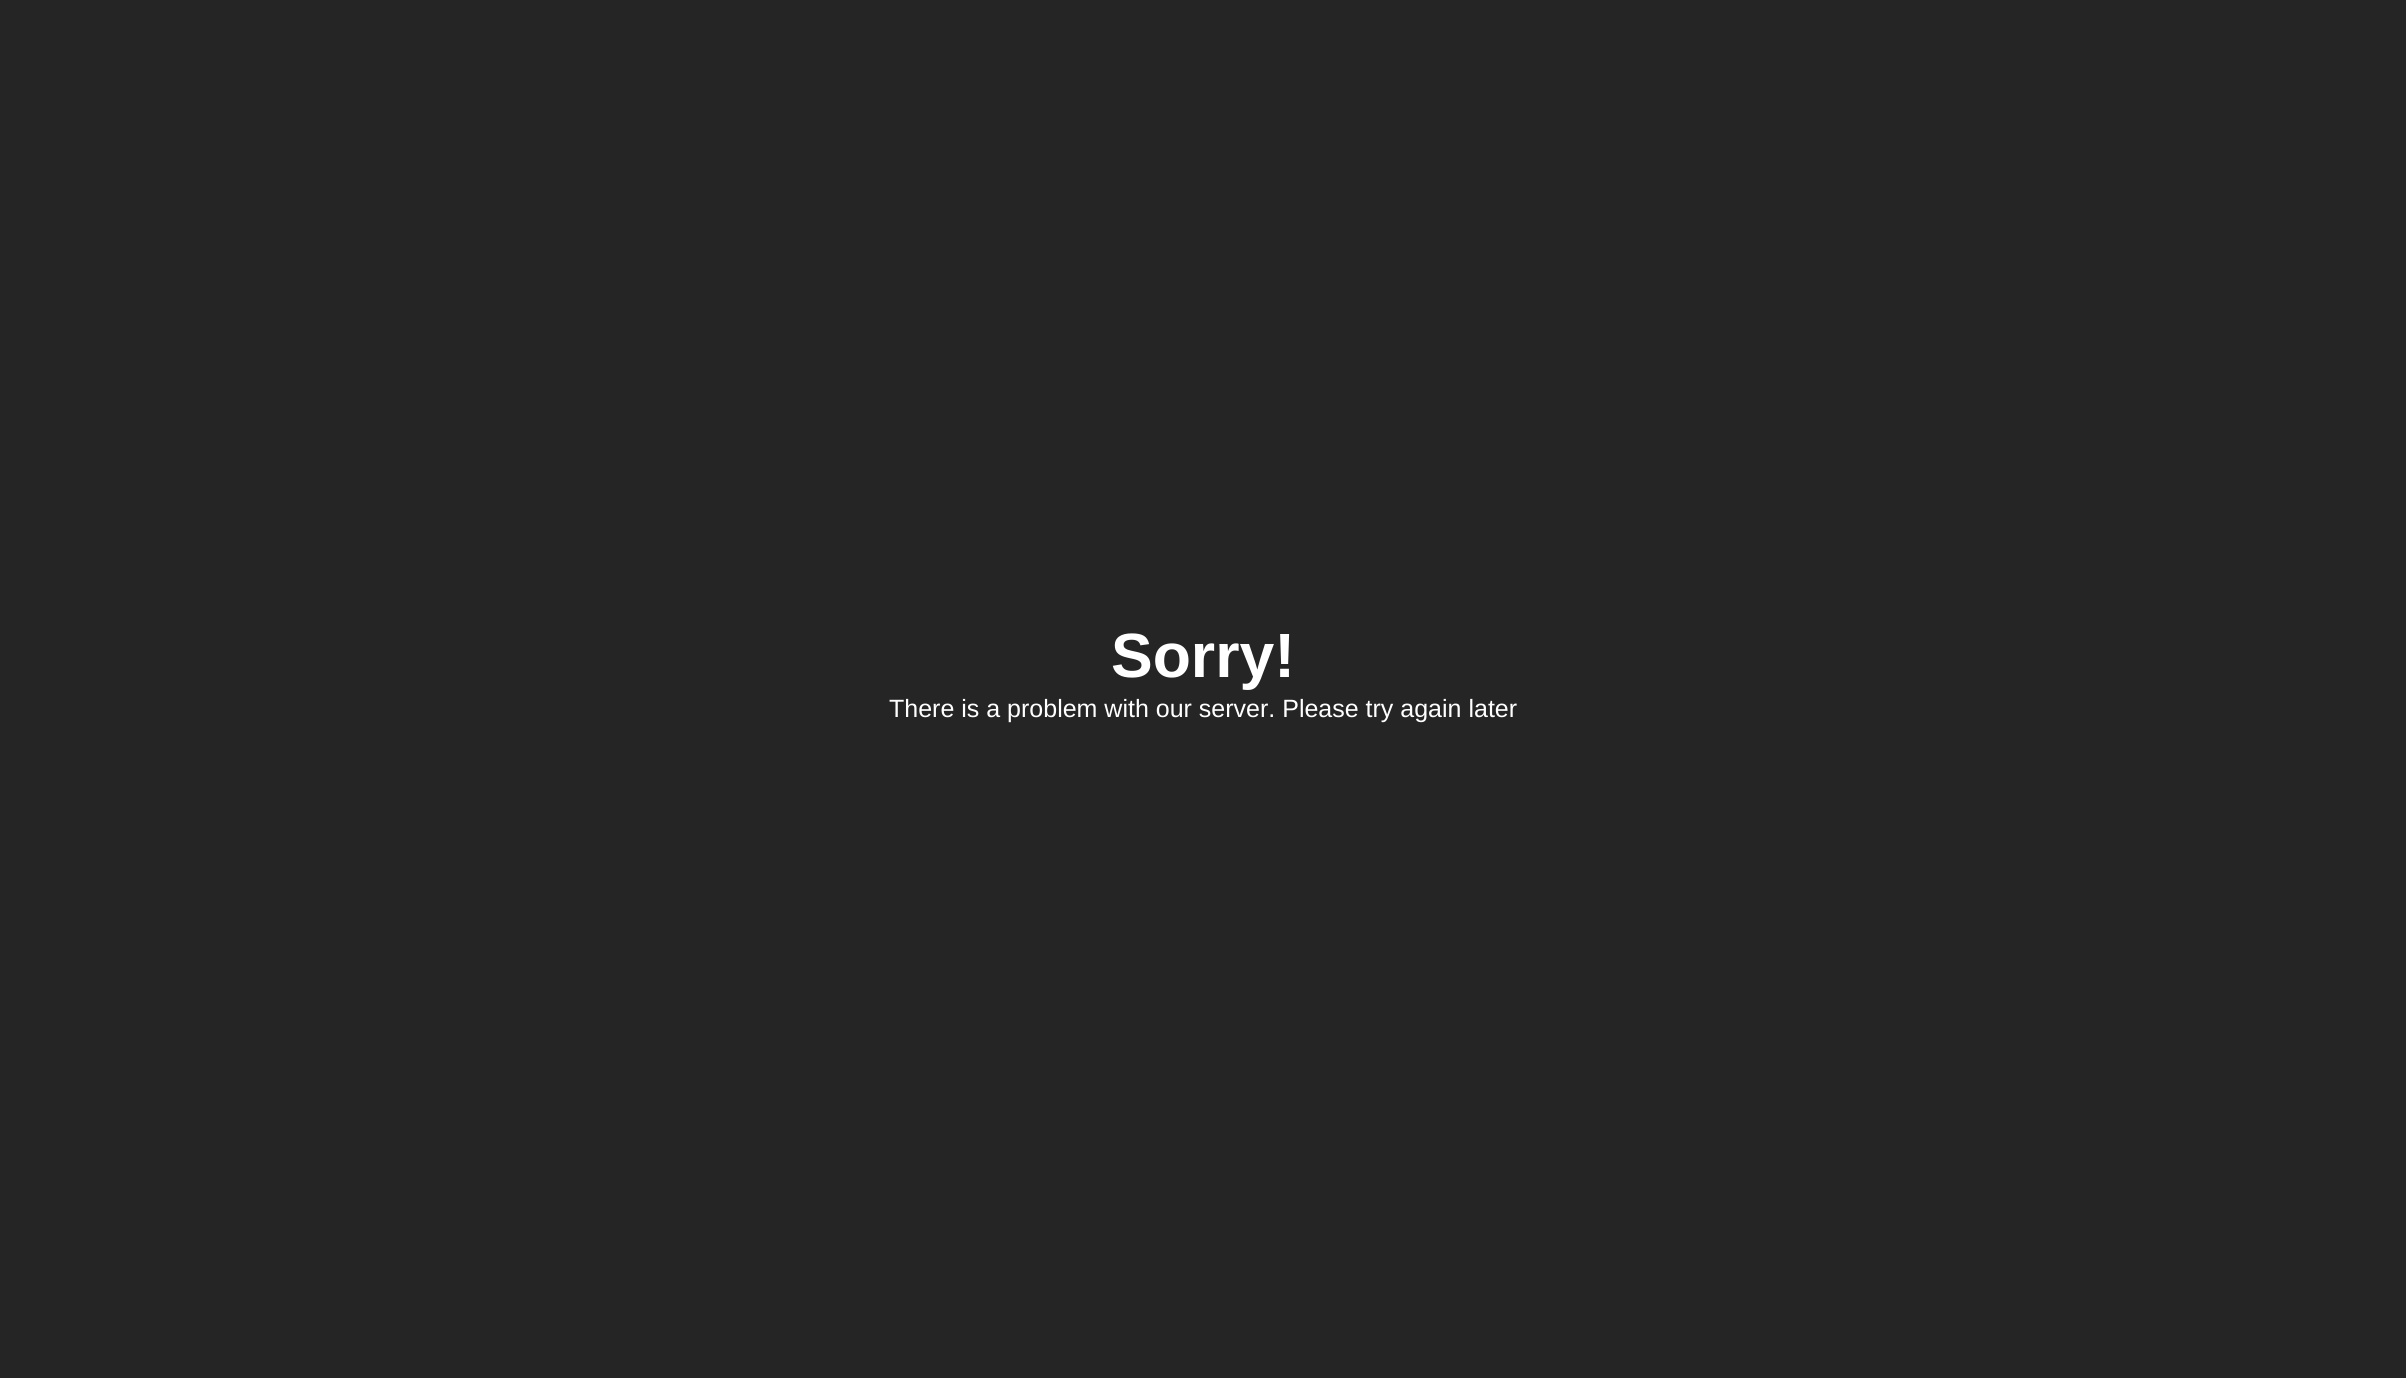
#include <cairo.h>
#include <math.h>
#include <stddef.h>


static void set_color(cairo_t *cr, unsigned color) {
    cairo_set_source_rgb(cr, (color >> 16) / 255.0, (color >> 8 & 255) / 255.0, (color & 255) / 255.0);
}

static void draw_text(cairo_t *cr, double x, double y, const char *s, const char *family, double size, int italic, int bold, unsigned color) {
    cairo_select_font_face(cr, family, italic ? CAIRO_FONT_SLANT_ITALIC : CAIRO_FONT_SLANT_NORMAL,
        bold ? CAIRO_FONT_WEIGHT_BOLD : CAIRO_FONT_WEIGHT_NORMAL);
    cairo_set_font_size(cr, size);
    set_color(cr, color);
    cairo_move_to(cr, x, y);
    cairo_show_text(cr, s);
}

int main(void) {
    cairo_surface_t *surface = cairo_image_surface_create(CAIRO_FORMAT_RGB24, 2406, 1378);
    cairo_t *cr = cairo_create(surface);
    cairo_font_options_t *options = cairo_font_options_create();
    cairo_font_options_set_hint_metrics(options, CAIRO_HINT_METRICS_OFF);
    cairo_font_options_set_hint_style(options, CAIRO_HINT_STYLE_NONE);
    cairo_set_font_options(cr, options);
    cairo_set_miter_limit(cr, 4);
    set_color(cr, 0x252525);
    cairo_paint(cr);
    draw_text(cr, 1111, 677, "Sorry!", "Liberation Sans", 62.5, 0, 1, 0xFFFFFF);
    draw_text(cr, 889, 717, "There is a problem with our server. Please try again later", "Liberation Sans", 25, 0, 0, 0xFFFFFF);
    cairo_surface_write_to_png(surface, "output.png");
    cairo_font_options_destroy(options);
    cairo_destroy(cr);
    cairo_surface_destroy(surface);
    return 0;
}
